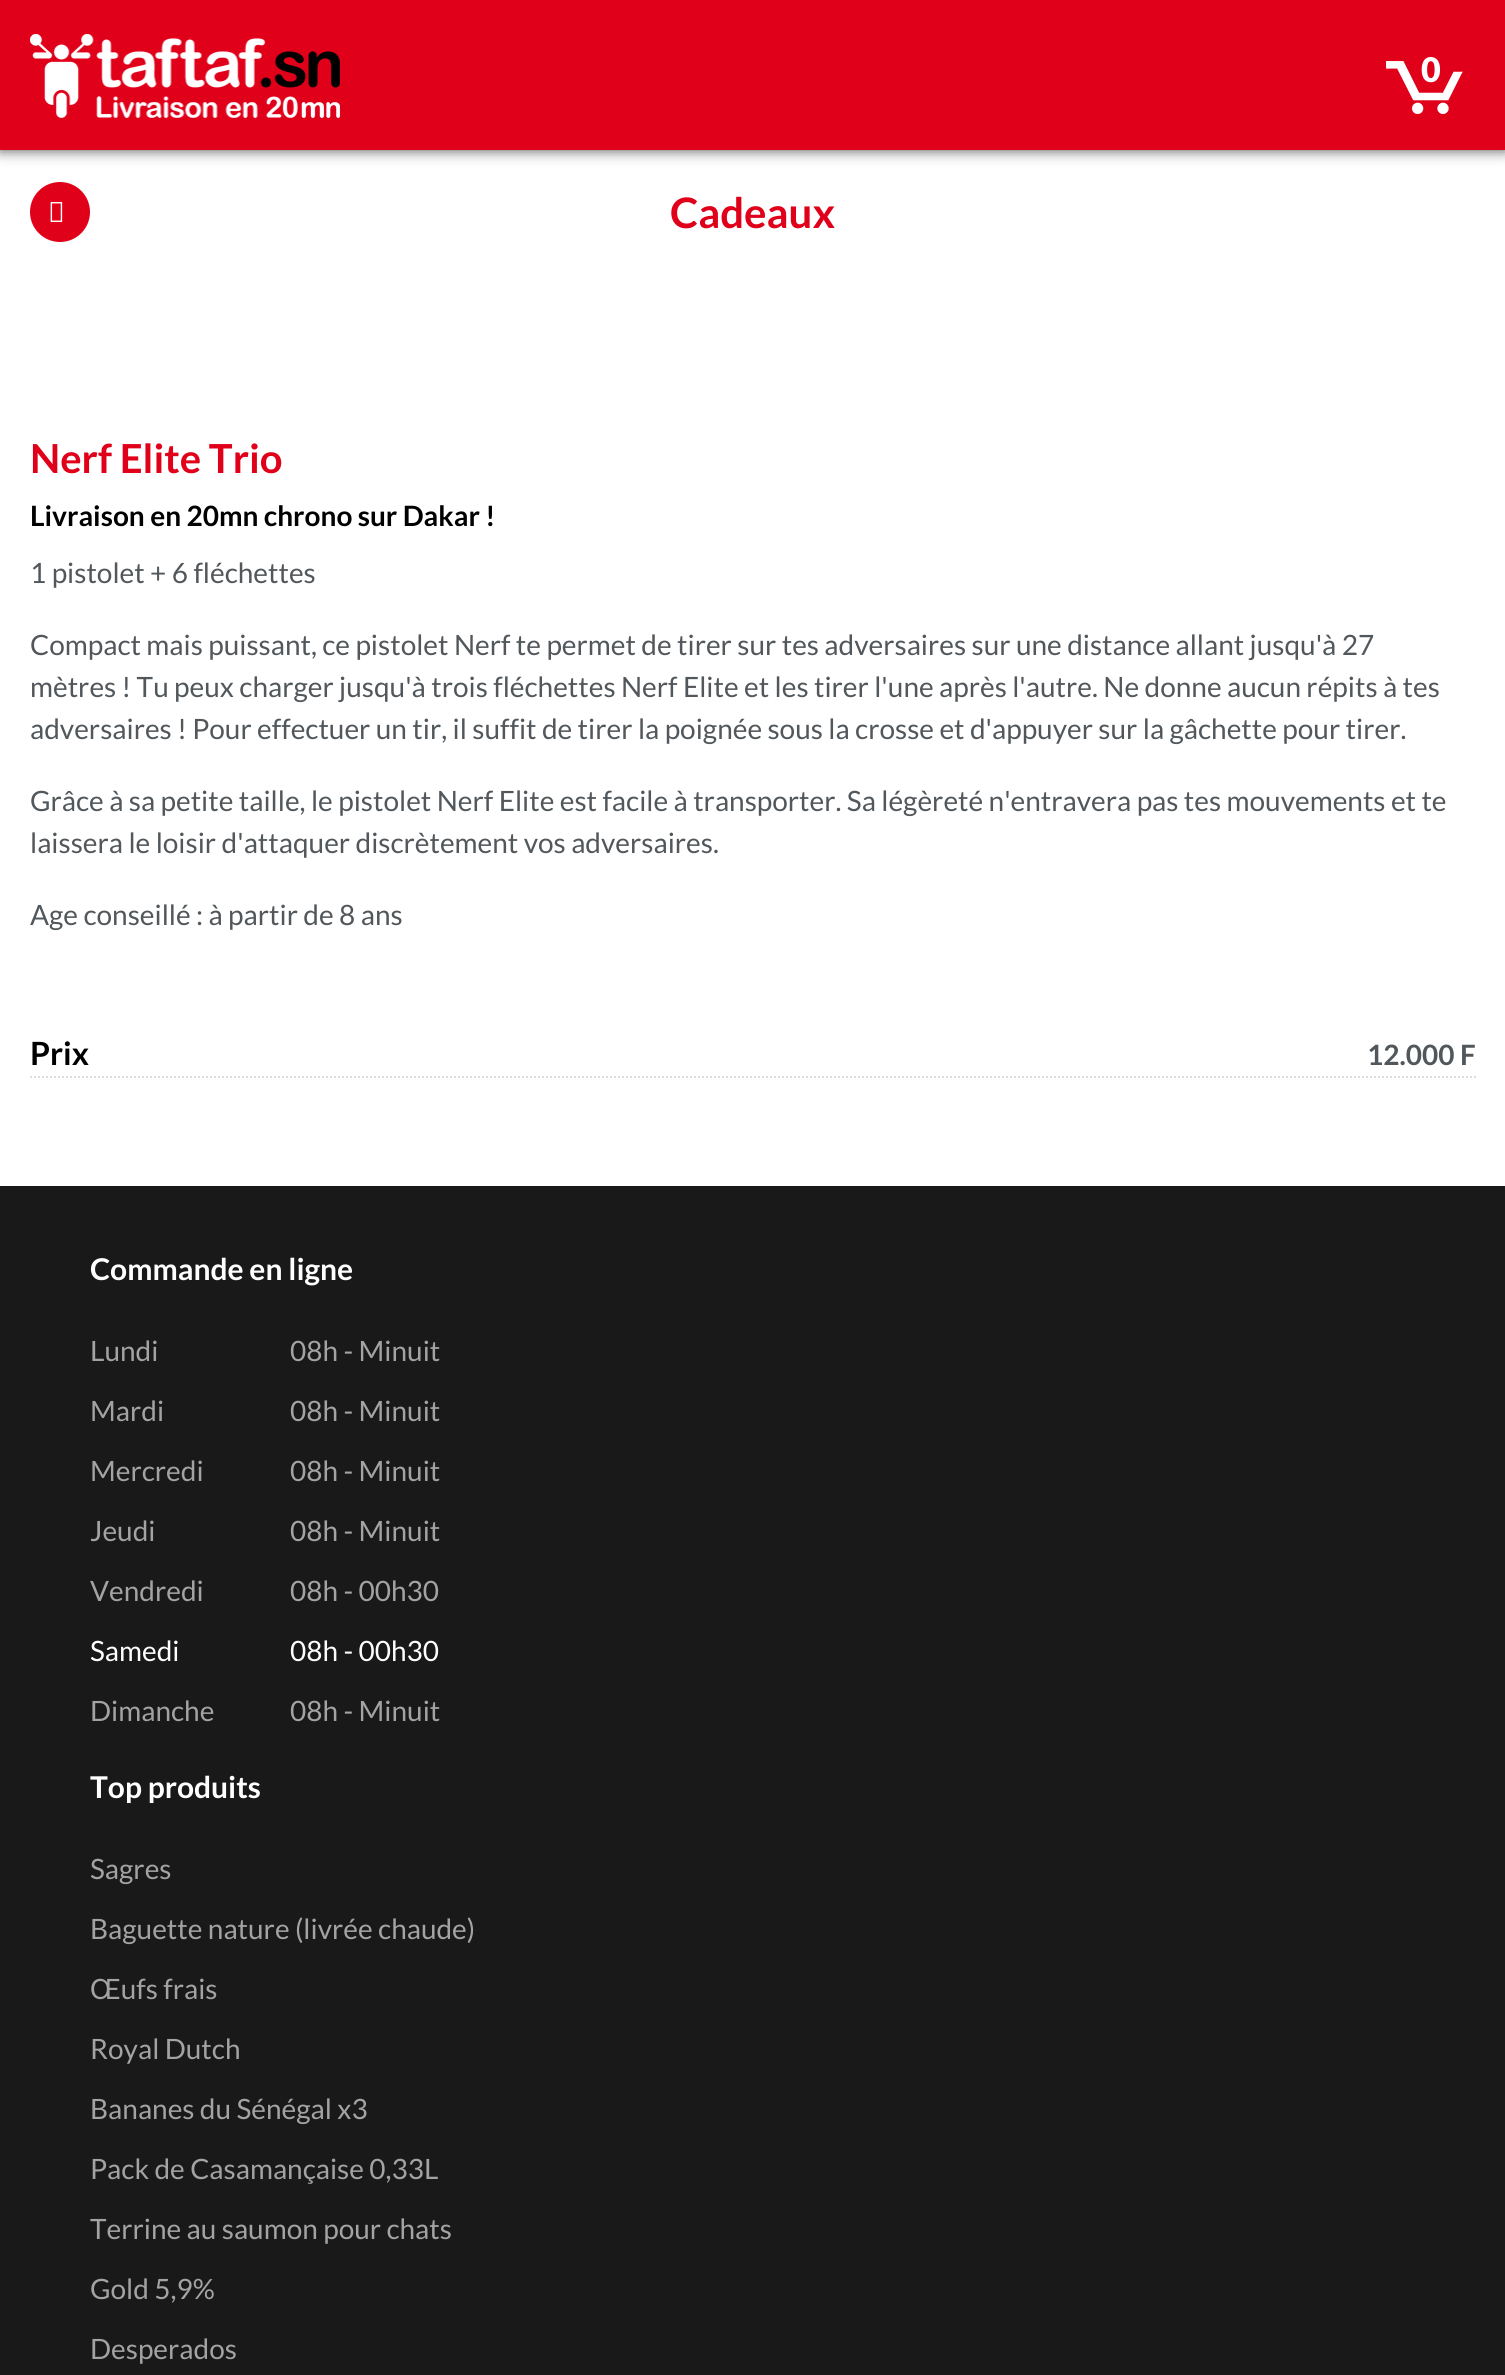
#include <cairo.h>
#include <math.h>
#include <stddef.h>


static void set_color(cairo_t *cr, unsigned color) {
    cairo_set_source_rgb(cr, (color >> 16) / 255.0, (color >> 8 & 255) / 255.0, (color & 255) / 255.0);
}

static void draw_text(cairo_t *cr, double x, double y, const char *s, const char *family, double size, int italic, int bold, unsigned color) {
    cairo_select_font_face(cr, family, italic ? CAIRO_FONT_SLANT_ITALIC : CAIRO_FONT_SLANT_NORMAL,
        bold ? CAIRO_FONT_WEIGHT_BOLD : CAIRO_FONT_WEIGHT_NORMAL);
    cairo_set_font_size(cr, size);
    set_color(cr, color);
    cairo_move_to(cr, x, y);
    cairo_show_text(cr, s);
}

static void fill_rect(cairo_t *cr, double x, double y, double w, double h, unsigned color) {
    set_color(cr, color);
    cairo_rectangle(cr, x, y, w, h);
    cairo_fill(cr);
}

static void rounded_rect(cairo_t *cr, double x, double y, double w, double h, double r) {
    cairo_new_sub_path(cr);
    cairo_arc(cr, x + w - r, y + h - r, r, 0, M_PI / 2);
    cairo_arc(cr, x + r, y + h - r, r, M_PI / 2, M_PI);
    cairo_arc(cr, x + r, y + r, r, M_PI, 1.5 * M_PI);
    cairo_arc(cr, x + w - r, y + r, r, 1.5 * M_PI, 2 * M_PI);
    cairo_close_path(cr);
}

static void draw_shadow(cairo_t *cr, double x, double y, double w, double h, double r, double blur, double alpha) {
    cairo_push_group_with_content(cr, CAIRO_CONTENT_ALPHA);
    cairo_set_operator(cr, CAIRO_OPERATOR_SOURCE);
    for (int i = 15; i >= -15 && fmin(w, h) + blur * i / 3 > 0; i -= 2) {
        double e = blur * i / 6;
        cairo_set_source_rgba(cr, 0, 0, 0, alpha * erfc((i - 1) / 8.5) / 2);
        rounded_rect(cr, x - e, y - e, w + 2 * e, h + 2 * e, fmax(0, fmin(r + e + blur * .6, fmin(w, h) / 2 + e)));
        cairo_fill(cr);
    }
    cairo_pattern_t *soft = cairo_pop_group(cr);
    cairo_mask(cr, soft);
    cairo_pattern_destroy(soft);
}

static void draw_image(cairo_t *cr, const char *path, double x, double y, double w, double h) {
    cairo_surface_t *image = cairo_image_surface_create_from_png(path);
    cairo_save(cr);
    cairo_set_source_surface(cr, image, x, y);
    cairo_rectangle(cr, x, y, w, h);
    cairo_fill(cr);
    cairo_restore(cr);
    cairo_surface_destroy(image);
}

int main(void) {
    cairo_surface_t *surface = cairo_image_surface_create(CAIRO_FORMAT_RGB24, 1505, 2375);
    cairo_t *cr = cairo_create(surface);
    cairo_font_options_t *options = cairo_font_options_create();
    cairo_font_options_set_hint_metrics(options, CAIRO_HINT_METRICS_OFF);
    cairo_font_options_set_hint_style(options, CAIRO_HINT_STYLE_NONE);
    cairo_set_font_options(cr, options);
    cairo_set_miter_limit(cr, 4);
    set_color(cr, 0xFFFFFF);
    cairo_paint(cr);
    set_color(cr, 0x000000);
    draw_shadow(cr, 0, 0, 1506, 150, 0, 7, 0.7);
    fill_rect(cr, 0, 0, 1505, 150, 0xE0001A);
    draw_image(cr, "assets/img1.png", 30, 34, 310, 84);
    draw_image(cr, "assets/img2.png", 1386, 61, 77, 53);
    draw_text(cr, 1421, 82, "0", "Lato Black", 34, 0, 0, 0xFFFFFF);
    set_color(cr, 0xE0001A);
    cairo_new_path(cr);
    cairo_arc(cr, 60, 212, 30, 0, 2 * M_PI);
    cairo_fill(cr);
    draw_image(cr, "assets/img3.png", 50, 202, 13, 20);
    draw_text(cr, 670, 228, "Cadeaux", "Lato", 42, 0, 1, 0xE0001A);
    draw_text(cr, 30, 473, "Nerf Elite Trio", "Lato", 40, 0, 1, 0xE0001A);
    draw_text(cr, 30, 526, "Livraison en 20mn chrono sur Dakar !", "Lato", 28, 0, 1, 0x000000);
    draw_text(cr, 30, 583, "1 pistolet + 6 fléchettes", "Lato", 28, 0, 0, 0x51575B);
    draw_text(cr, 30, 655, "Compact mais puissant, ce pistolet Nerf te permet de tirer sur tes adversaires sur une distance allant jusqu'à 27", "Lato", 28, 0, 0, 0x51575B);
    draw_text(cr, 30, 697, "mètres ! Tu peux charger jusqu'à trois fléchettes Nerf Elite et les tirer l'une après l'autre. Ne donne aucun répits à tes", "Lato", 28, 0, 0, 0x51575B);
    draw_text(cr, 30, 739, "adversaires ! Pour effectuer un tir, il suffit de tirer la poignée sous la crosse et d'appuyer sur la gâchette pour tirer.", "Lato", 28, 0, 0, 0x51575B);
    draw_text(cr, 30, 811, "Grâce à sa petite taille, le pistolet Nerf Elite est facile à transporter. Sa légèreté n'entravera pas tes mouvements et te", "Lato", 28, 0, 0, 0x51575B);
    draw_text(cr, 30, 853, "laissera le loisir d'attaquer discrètement vos adversaires.", "Lato", 28, 0, 0, 0x51575B);
    draw_text(cr, 30, 925, "Age conseillé : à partir de 8 ans", "Lato", 28, 0, 0, 0x51575B);
    cairo_new_path(cr);
    cairo_move_to(cr, 30, 1077);
    cairo_line_to(cr, 1476, 1077);
    set_color(cr, 0xDDDDDD);
    cairo_set_dash(cr, (double[]){2, 2}, 2, 0);
    cairo_stroke(cr);
    draw_text(cr, 30, 1065, "Prix", "Lato", 32, 0, 1, 0x000000);
    draw_text(cr, 1367, 1065, "12.000 F", "Lato", 28, 0, 1, 0x51575B);
    fill_rect(cr, 0, 1186, 1505, 1189, 0x191919);
    draw_text(cr, 90, 1280, "Commande en ligne", "Lato", 30, 0, 1, 0xFFFFFF);
    draw_text(cr, 90, 1361, "Lundi", "Lato", 28, 0, 0, 0xA3A3A3);
    draw_text(cr, 290, 1361, "08h - Minuit", "Lato", 28, 0, 0, 0xA3A3A3);
    draw_text(cr, 90, 1421, "Mardi", "Lato", 28, 0, 0, 0xA3A3A3);
    draw_text(cr, 290, 1421, "08h - Minuit", "Lato", 28, 0, 0, 0xA3A3A3);
    draw_text(cr, 90, 1481, "Mercredi", "Lato", 28, 0, 0, 0xA3A3A3);
    draw_text(cr, 290, 1481, "08h - Minuit", "Lato", 28, 0, 0, 0xA3A3A3);
    draw_text(cr, 90, 1541, "Jeudi", "Lato", 28, 0, 0, 0xA3A3A3);
    draw_text(cr, 290, 1541, "08h - Minuit", "Lato", 28, 0, 0, 0xA3A3A3);
    draw_text(cr, 90, 1601, "Vendredi", "Lato", 28, 0, 0, 0xA3A3A3);
    draw_text(cr, 290, 1601, "08h - 00h30", "Lato", 28, 0, 0, 0xA3A3A3);
    draw_text(cr, 90, 1661, "Samedi", "Lato", 28, 0, 0, 0xFFFFFF);
    draw_text(cr, 290, 1661, "08h - 00h30", "Lato", 28, 0, 0, 0xFFFFFF);
    draw_text(cr, 90, 1721, "Dimanche", "Lato", 28, 0, 0, 0xA3A3A3);
    draw_text(cr, 290, 1721, "08h - Minuit", "Lato", 28, 0, 0, 0xA3A3A3);
    draw_text(cr, 90, 1798, "Top produits", "Lato", 30, 0, 1, 0xFFFFFF);
    draw_text(cr, 90, 1879, "Sagres", "Lato", 28, 0, 0, 0xA3A3A3);
    draw_text(cr, 90, 1939, "Baguette nature (livrée chaude)", "Lato", 28, 0, 0, 0xA3A3A3);
    draw_text(cr, 90, 1999, "Œufs frais", "Lato", 28, 0, 0, 0xA3A3A3);
    draw_text(cr, 90, 2059, "Royal Dutch", "Lato", 28, 0, 0, 0xA3A3A3);
    draw_text(cr, 90, 2119, "Bananes du Sénégal x3", "Lato", 28, 0, 0, 0xA3A3A3);
    draw_text(cr, 90, 2179, "Pack de Casamançaise 0,33L", "Lato", 28, 0, 0, 0xA3A3A3);
    draw_text(cr, 90, 2239, "Terrine au saumon pour chats", "Lato", 28, 0, 0, 0xA3A3A3);
    draw_text(cr, 90, 2299, "Gold 5,9%", "Lato", 28, 0, 0, 0xA3A3A3);
    draw_text(cr, 90, 2359, "Desperados", "Lato", 28, 0, 0, 0xA3A3A3);
    cairo_surface_write_to_png(surface, "output.png");
    cairo_font_options_destroy(options);
    cairo_destroy(cr);
    cairo_surface_destroy(surface);
    return 0;
}
